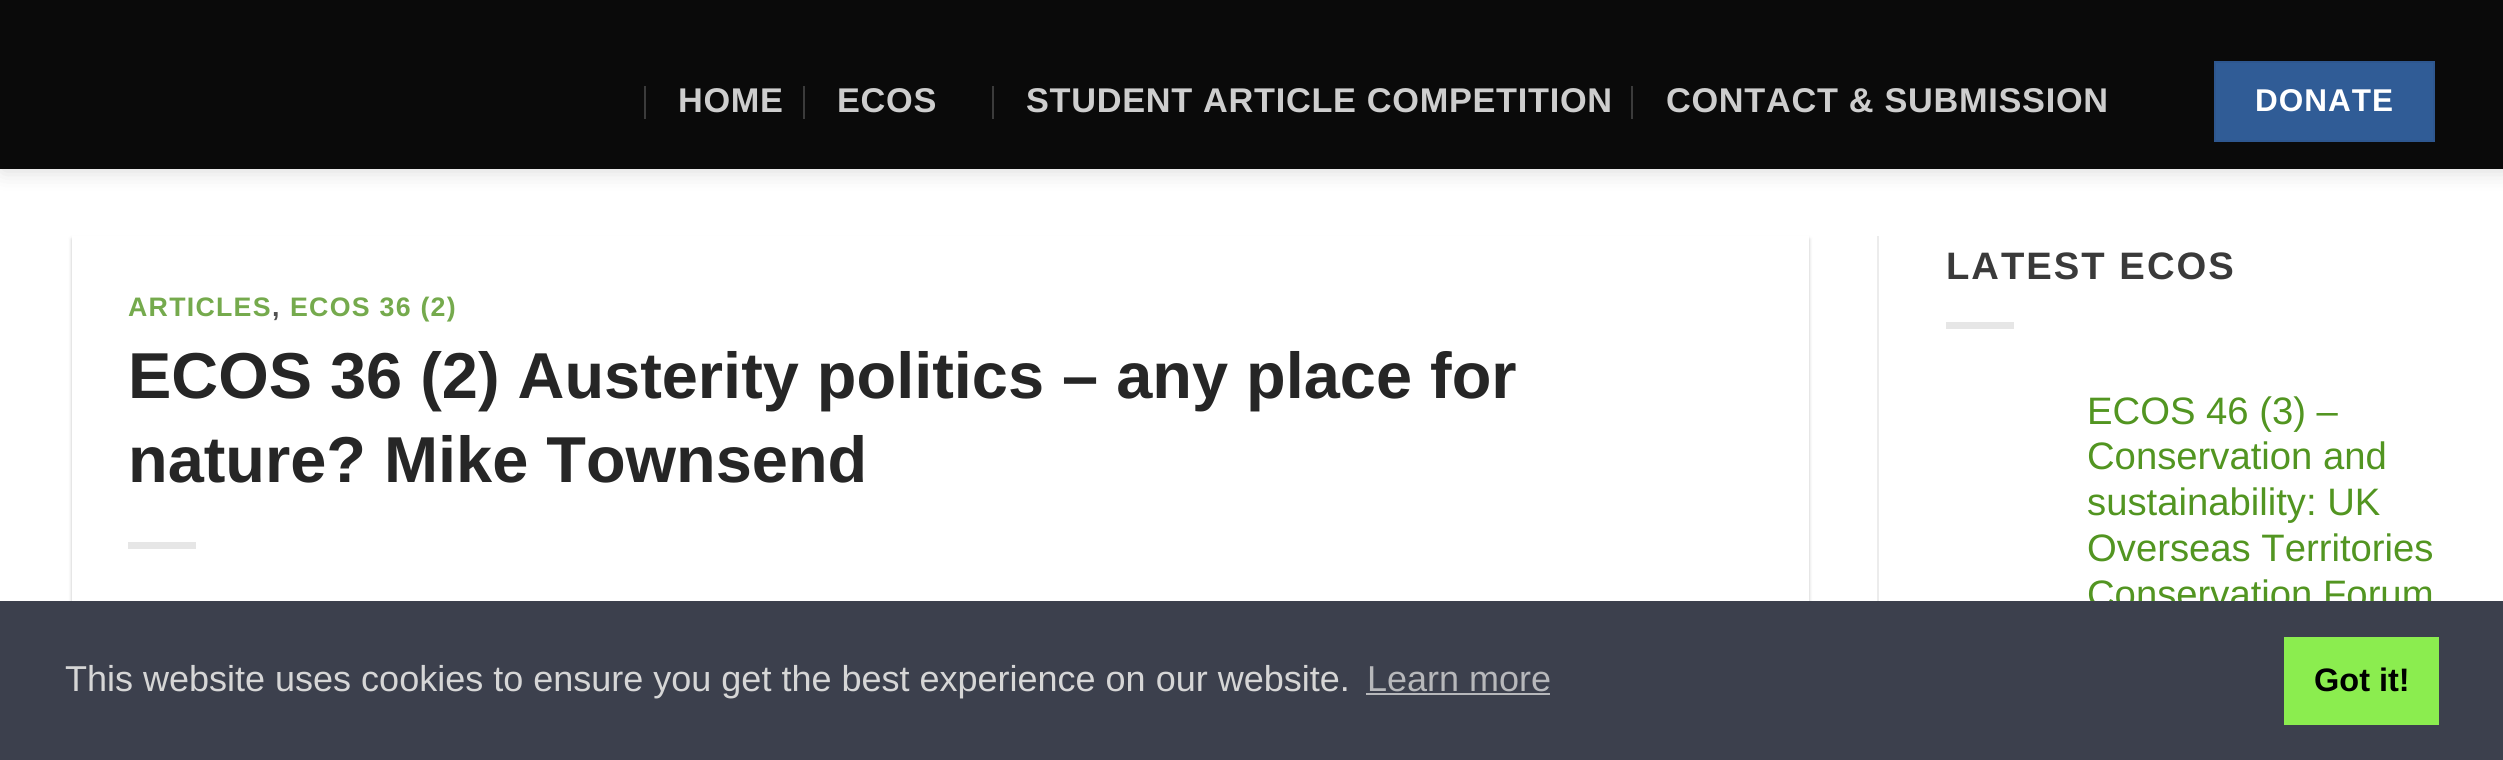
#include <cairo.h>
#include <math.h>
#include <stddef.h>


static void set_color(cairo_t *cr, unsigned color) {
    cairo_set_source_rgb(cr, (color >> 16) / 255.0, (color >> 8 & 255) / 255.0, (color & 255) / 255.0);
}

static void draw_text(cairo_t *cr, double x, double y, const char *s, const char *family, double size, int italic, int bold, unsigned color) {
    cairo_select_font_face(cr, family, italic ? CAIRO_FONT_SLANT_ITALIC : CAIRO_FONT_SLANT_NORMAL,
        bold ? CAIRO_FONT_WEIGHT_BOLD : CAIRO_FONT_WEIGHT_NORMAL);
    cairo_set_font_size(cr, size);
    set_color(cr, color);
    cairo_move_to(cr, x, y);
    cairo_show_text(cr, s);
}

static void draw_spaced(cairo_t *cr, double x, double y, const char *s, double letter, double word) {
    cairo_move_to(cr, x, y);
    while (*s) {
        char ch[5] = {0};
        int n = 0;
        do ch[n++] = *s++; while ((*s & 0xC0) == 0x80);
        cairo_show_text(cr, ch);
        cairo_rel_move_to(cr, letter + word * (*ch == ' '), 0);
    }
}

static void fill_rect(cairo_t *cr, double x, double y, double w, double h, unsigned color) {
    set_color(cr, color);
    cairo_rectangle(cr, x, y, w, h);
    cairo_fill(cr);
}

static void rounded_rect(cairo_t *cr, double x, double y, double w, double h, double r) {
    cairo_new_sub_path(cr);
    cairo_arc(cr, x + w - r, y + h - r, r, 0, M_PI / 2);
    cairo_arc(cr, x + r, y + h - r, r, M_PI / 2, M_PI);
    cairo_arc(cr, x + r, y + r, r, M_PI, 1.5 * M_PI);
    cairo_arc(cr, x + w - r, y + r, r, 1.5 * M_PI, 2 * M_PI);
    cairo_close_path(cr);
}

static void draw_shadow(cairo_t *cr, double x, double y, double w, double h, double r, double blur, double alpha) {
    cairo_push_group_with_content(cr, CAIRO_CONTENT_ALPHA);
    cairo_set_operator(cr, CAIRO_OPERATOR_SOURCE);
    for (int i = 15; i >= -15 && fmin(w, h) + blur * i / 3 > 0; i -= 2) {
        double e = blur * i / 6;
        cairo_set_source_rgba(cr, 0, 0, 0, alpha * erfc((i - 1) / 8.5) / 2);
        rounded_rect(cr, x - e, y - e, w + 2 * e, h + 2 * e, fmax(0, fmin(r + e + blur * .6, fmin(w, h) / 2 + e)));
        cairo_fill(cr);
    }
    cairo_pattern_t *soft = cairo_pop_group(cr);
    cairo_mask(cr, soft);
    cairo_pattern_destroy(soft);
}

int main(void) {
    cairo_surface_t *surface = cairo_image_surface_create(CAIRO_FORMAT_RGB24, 2503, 760);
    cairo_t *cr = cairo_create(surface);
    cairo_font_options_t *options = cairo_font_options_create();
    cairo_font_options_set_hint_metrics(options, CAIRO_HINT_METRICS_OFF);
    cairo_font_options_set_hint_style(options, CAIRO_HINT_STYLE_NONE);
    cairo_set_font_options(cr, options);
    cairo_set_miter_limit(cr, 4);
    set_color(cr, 0xFFFFFF);
    cairo_paint(cr);
    set_color(cr, 0x000000);
    draw_shadow(cr, 2, 2, 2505, 169, 0, 11, 0.15);
    fill_rect(cr, 0, 0, 2503, 169, 0x0A0A0A);
    fill_rect(cr, 644, 86, 2, 33, 0x3B3B3B);
    cairo_select_font_face(cr, "Liberation Sans", CAIRO_FONT_SLANT_NORMAL, CAIRO_FONT_WEIGHT_BOLD);
    cairo_set_font_size(cr, 34.3);
    set_color(cr, 0xCECECE);
    draw_spaced(cr, 678, 112, "HOME", 0.7, 0);
    fill_rect(cr, 803, 86, 2, 33, 0x3B3B3B);
    set_color(cr, 0xCECECE);
    draw_spaced(cr, 837, 112, "ECOS", 0.7, 0);
    fill_rect(cr, 992, 86, 2, 33, 0x3B3B3B);
    set_color(cr, 0xCECECE);
    draw_spaced(cr, 1026, 112, "STUDENT ARTICLE COMPETITION", 0.7, 0);
    fill_rect(cr, 1631, 86, 2, 33, 0x3B3B3B);
    set_color(cr, 0xCECECE);
    draw_spaced(cr, 1666, 112, "CONTACT & SUBMISSION", 0.7, 0);
    set_color(cr, 0x305C96);
    cairo_rectangle(cr, 2215, 62, 219, 79);
    cairo_fill_preserve(cr);
    set_color(cr, 0x2E578F);
    cairo_stroke(cr);
    cairo_set_font_size(cr, 31.5);
    set_color(cr, 0xFFFFFF);
    draw_spaced(cr, 2255, 111, "DONATE", 1, 0);
    set_color(cr, 0x000000);
    draw_shadow(cr, 72, 239, 1737, 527, 0, 2, 0.24);
    fill_rect(cr, 72, 236, 1737, 365, 0xFFFFFF);
    cairo_set_font_size(cr, 26.75);
    set_color(cr, 0x75AA4D);
    draw_spaced(cr, 128, 316, "ARTICLES", 1.25, 0);
    set_color(cr, 0x515151);
    draw_spaced(cr, 272, 316, ",", 1.25, 0);
    set_color(cr, 0x75AA4D);
    draw_spaced(cr, 290, 316, "ECOS 36 (2)", 1.25, 0);
    draw_text(cr, 128, 398, "ECOS 36 (2) Austerity politics – any place for", "Liberation Sans", 64.9, 0, 1, 0x262626);
    draw_text(cr, 128, 482, "nature? Mike Townsend", "Liberation Sans", 64.9, 0, 1, 0x262626);
    fill_rect(cr, 128, 542, 68, 7, 0xE6E6E6);
    fill_rect(cr, 1877, 236, 2, 365, 0xECECEC);
    cairo_set_font_size(cr, 38.25);
    set_color(cr, 0x3A3A3A);
    draw_spaced(cr, 1946, 279, "LATEST ECOS", 2, 0);
    fill_rect(cr, 1946, 322, 68, 7, 0xE6E6E6);
    draw_text(cr, 2087, 424, "ECOS 46 (3) –", "Liberation Sans", 38.25, 0, 0, 0x529521);
    draw_text(cr, 2087, 469, "Conservation and", "Liberation Sans", 38.25, 0, 0, 0x529521);
    draw_text(cr, 2087, 515, "sustainability: UK", "Liberation Sans", 38.25, 0, 0, 0x529521);
    draw_text(cr, 2087, 561, "Overseas Territories", "Liberation Sans", 38.25, 0, 0, 0x529521);
    draw_text(cr, 2087, 607, "Conservation Forum", "Liberation Sans", 38.25, 0, 0, 0x529521);
    fill_rect(cr, 0, 601, 2503, 159, 0x3C404D);
    draw_text(cr, 65, 691, "This website uses cookies to ensure you get the best experience on our website.", "Liberation Sans", 36, 0, 0, 0xD6D6D6);
    draw_text(cr, 1367, 691, "Learn more", "Liberation Sans", 36, 0, 0, 0xB7B8BB);
    fill_rect(cr, 1366, 693, 184, 2, 0xB7B8BB);
    fill_rect(cr, 2284, 637, 155, 88, 0x8BED4F);
    draw_text(cr, 2314, 691, "Got it!", "Liberation Sans", 32.5, 0, 1, 0x000000);
    cairo_surface_write_to_png(surface, "output.png");
    cairo_font_options_destroy(options);
    cairo_destroy(cr);
    cairo_surface_destroy(surface);
    return 0;
}
